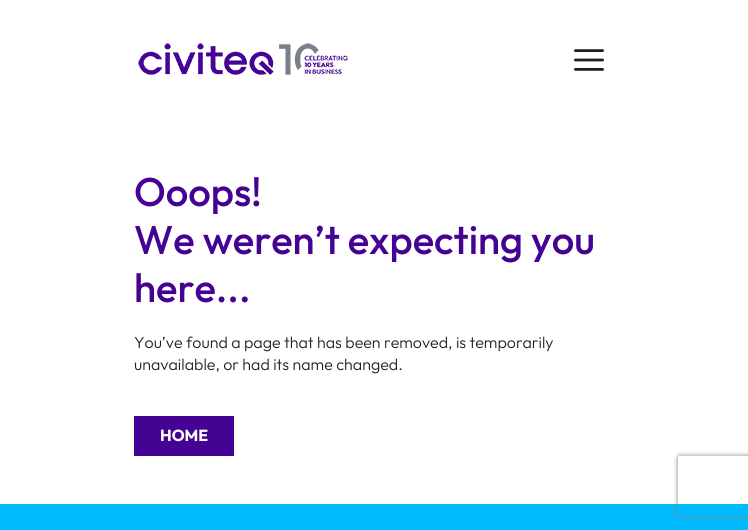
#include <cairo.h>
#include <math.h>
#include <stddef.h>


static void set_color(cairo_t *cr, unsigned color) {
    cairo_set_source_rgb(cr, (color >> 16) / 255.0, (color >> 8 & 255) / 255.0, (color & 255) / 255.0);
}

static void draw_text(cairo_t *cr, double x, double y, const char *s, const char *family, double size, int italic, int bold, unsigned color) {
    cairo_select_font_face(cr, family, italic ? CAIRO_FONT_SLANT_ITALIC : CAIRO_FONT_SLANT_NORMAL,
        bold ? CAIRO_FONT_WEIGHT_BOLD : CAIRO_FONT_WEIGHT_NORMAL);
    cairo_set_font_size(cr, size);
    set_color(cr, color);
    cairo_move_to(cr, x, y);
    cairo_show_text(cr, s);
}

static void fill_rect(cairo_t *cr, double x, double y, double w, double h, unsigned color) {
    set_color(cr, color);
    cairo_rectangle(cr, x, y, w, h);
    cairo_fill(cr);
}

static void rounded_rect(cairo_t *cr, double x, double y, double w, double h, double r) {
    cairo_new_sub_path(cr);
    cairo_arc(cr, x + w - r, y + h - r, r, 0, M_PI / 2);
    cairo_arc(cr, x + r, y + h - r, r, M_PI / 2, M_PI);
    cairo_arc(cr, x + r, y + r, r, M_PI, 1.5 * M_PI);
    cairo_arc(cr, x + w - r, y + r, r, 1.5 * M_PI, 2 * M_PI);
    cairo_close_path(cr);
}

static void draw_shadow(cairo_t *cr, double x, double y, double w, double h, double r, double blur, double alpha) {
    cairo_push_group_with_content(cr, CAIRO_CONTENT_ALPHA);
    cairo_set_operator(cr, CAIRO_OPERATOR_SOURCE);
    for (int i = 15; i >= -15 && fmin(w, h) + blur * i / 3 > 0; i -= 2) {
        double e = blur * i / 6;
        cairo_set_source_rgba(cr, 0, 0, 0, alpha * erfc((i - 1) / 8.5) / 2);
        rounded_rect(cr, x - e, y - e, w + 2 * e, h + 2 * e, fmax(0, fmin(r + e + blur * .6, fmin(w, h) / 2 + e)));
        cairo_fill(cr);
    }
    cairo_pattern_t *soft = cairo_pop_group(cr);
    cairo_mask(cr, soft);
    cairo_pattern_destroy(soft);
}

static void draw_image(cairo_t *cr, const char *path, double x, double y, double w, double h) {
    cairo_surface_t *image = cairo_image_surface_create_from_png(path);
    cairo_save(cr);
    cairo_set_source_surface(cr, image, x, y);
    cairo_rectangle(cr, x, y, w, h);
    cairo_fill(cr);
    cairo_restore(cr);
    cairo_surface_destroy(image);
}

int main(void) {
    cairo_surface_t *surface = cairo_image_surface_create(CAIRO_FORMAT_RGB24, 748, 530);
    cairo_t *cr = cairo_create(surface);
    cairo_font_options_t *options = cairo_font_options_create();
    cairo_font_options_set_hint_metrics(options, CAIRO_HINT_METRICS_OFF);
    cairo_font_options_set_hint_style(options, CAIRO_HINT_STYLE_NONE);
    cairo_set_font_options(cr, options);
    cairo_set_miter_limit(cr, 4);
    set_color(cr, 0xFFFFFF);
    cairo_paint(cr);
    draw_image(cr, "assets/img1.png", 138, 43, 210, 32);
    draw_image(cr, "assets/img2.png", 574, 49, 30, 22);
    draw_text(cr, 134, 206, "Ooops!", "Outfit Medium", 40, 0, 0, 0x450394);
    draw_text(cr, 134, 254, "We weren’t expecting you", "Outfit Medium", 40, 0, 0, 0x450394);
    draw_text(cr, 134, 302, "here...", "Outfit Medium", 40, 0, 0, 0x450394);
    draw_text(cr, 134, 348, "You’ve found a page that has been removed, is temporarily", "Outfit Light", 16, 0, 0, 0x231F20);
    draw_text(cr, 134, 370, "unavailable, or had its name changed.", "Outfit Light", 16, 0, 0, 0x231F20);
    fill_rect(cr, 134, 416, 100, 40, 0x450394);
    draw_text(cr, 160, 441, "HOME", "Outfit", 16, 0, 1, 0xFFFFFF);
    fill_rect(cr, 0, 504, 748, 26, 0x00BAFF);
    cairo_save(cr);
    cairo_set_fill_rule(cr, CAIRO_FILL_RULE_EVEN_ODD);
    cairo_new_path(cr);
    cairo_move_to(cr, 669, 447);
    cairo_line_to(cr, 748, 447);
    cairo_line_to(cr, 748, 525);
    cairo_line_to(cr, 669, 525);
    cairo_close_path(cr);
    cairo_move_to(cr, 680, 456);
    cairo_line_to(cr, 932, 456);
    cairo_curve_to(cr, 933, 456, 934, 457, 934, 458);
    cairo_line_to(cr, 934, 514);
    cairo_curve_to(cr, 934, 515, 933, 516, 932, 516);
    cairo_line_to(cr, 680, 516);
    cairo_curve_to(cr, 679, 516, 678, 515, 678, 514);
    cairo_line_to(cr, 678, 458);
    cairo_curve_to(cr, 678, 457, 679, 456, 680, 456);
    cairo_close_path(cr);
    cairo_clip(cr);
    set_color(cr, 0x808080);
    draw_shadow(cr, 678, 456, 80, 60, 2, 2.5, 1);
    cairo_restore(cr);
    cairo_surface_write_to_png(surface, "output.png");
    cairo_font_options_destroy(options);
    cairo_destroy(cr);
    cairo_surface_destroy(surface);
    return 0;
}
